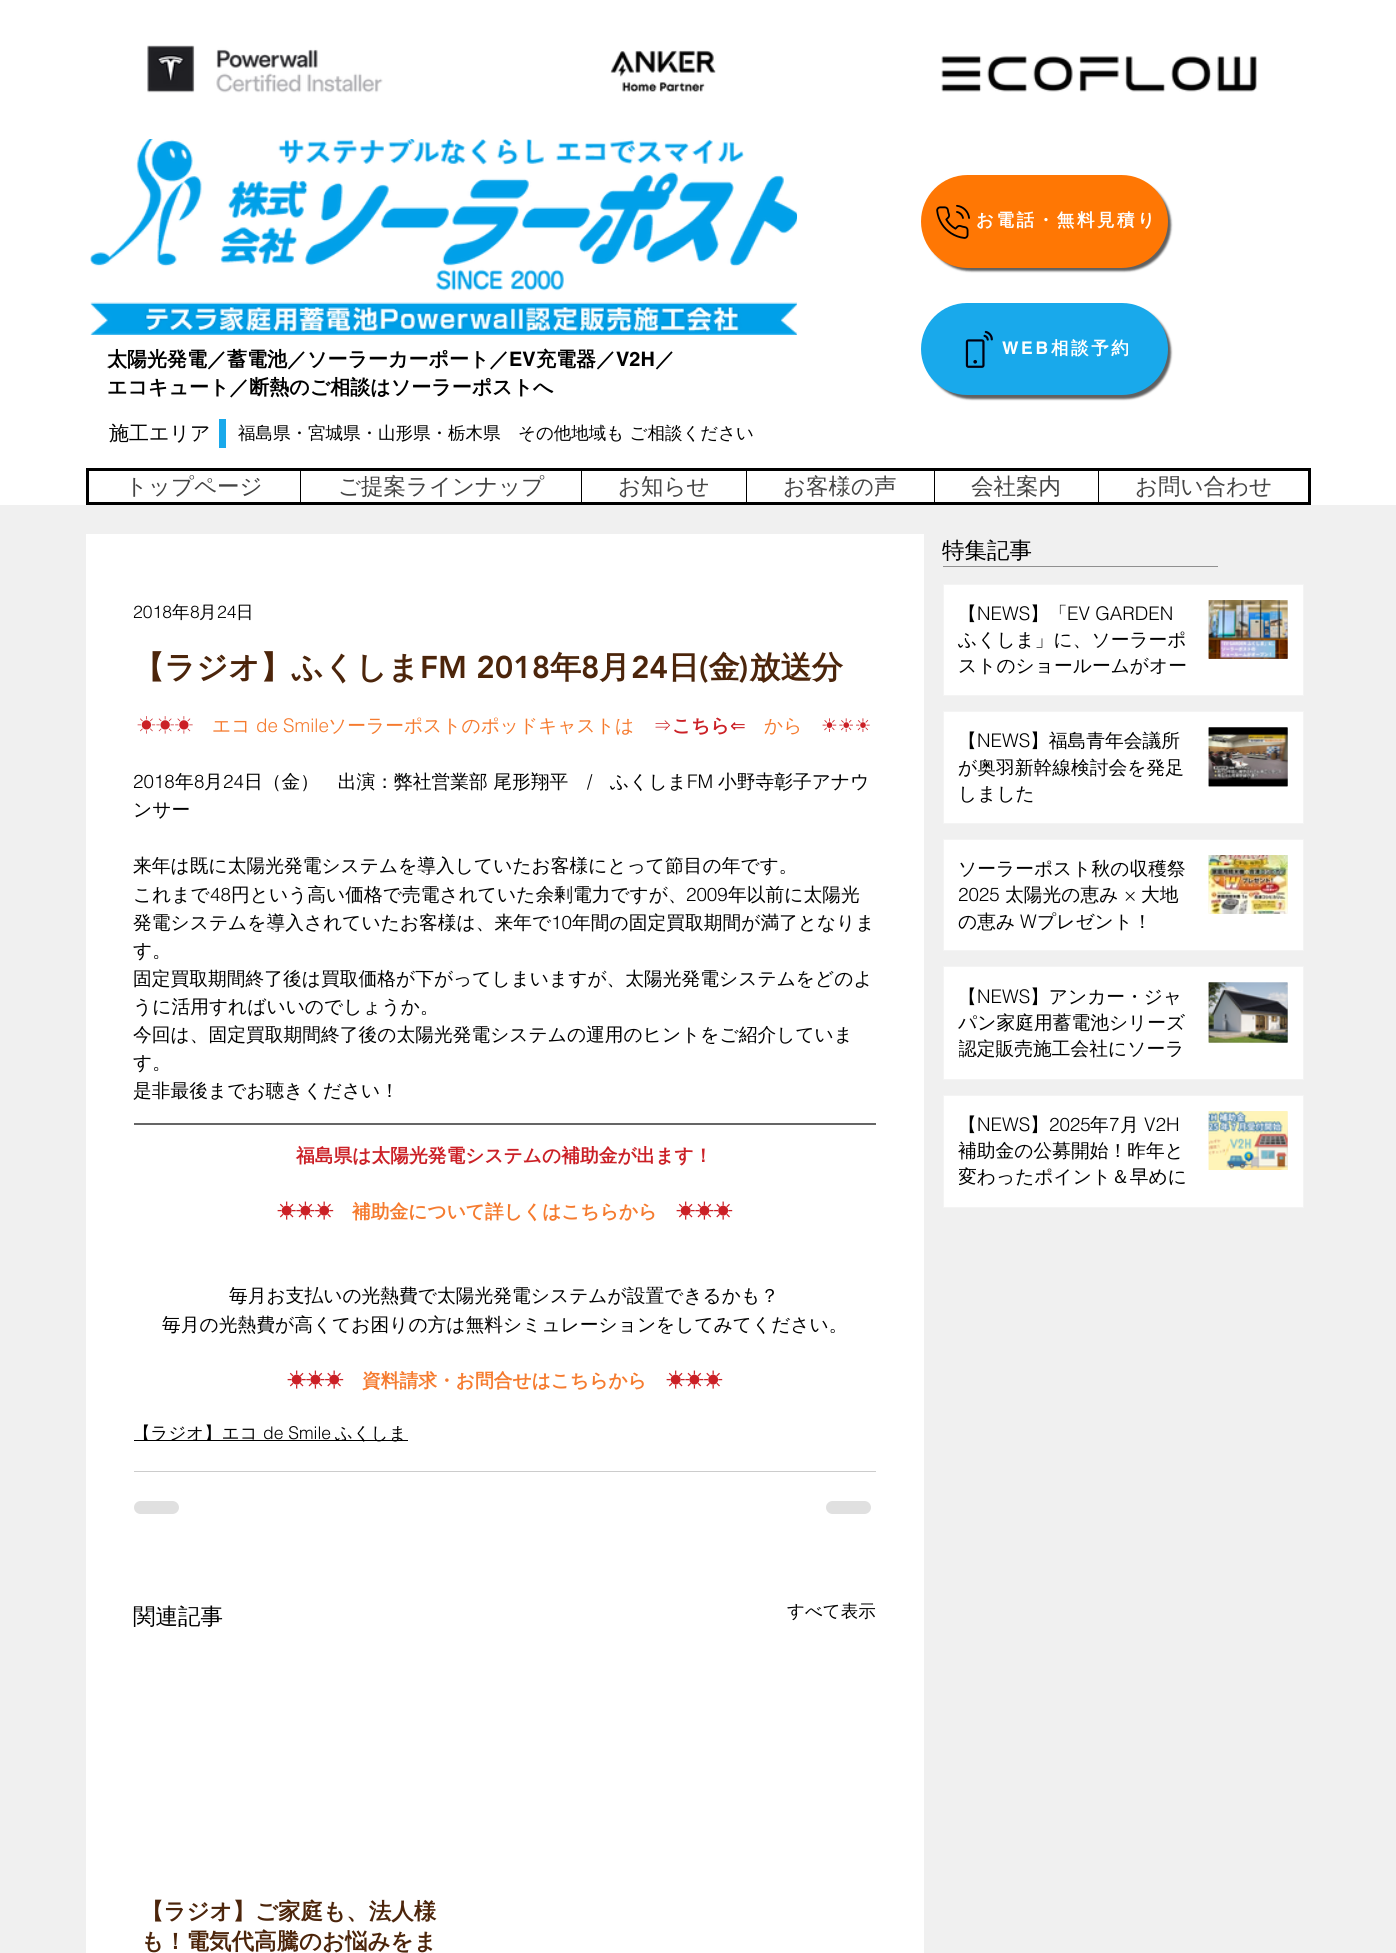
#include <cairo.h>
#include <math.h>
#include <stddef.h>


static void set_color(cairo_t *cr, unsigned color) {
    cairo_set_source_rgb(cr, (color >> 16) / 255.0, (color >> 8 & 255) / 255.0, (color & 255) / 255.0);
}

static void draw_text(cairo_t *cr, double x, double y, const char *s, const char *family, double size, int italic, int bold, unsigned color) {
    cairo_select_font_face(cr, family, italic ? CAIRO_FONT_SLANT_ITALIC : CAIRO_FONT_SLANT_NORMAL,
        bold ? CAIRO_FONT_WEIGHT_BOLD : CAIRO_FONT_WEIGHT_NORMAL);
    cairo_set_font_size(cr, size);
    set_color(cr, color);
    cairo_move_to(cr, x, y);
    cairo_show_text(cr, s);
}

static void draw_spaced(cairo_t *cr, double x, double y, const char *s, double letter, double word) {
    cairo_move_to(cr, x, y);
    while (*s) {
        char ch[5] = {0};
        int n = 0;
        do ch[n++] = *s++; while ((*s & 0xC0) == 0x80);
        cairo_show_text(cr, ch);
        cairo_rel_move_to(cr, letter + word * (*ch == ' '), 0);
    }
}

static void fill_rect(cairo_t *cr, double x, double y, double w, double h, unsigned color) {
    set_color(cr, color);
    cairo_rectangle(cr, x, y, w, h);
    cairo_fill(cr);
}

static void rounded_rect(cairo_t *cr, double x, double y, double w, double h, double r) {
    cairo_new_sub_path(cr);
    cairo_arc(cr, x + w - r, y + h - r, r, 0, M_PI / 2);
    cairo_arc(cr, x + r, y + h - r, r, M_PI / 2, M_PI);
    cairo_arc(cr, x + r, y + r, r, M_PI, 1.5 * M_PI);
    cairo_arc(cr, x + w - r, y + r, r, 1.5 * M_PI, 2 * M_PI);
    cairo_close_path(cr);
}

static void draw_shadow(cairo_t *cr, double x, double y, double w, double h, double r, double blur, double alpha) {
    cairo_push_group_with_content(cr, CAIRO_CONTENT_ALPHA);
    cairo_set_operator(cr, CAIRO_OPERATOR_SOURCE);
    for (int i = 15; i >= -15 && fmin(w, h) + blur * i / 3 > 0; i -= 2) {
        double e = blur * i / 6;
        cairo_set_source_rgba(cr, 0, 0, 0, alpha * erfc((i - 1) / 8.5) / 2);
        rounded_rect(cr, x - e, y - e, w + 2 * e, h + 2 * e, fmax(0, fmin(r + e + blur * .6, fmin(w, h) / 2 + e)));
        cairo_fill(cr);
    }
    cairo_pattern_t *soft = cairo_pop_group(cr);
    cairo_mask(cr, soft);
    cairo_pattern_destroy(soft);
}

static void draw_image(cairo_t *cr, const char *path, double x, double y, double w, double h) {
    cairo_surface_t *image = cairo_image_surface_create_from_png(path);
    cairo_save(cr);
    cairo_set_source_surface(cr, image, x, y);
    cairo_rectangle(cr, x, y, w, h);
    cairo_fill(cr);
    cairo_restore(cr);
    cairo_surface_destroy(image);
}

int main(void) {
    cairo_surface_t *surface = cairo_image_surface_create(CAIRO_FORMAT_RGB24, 1396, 1953);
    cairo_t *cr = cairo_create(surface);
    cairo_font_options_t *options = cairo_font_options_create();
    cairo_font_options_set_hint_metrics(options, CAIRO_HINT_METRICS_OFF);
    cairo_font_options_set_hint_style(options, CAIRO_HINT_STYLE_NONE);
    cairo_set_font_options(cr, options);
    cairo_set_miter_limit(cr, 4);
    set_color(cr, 0xF0F0F0);
    cairo_paint(cr);
    fill_rect(cr, 0, 0, 1396, 505, 0xFFFFFF);
    draw_image(cr, "assets/img1.png", 147, 45, 236, 48);
    draw_image(cr, "assets/img2.png", 610, 50, 106, 42);
    draw_image(cr, "assets/img3.png", 941, 56, 316, 36);
    draw_image(cr, "assets/img4.png", 90, 139, 708, 196);
    set_color(cr, 0x606060);
    draw_shadow(cr, 925, 179, 246, 92, 46, 1, 1);
    set_color(cr, 0xFF7704);
    rounded_rect(cr, 921, 175, 247, 93, 46.5);
    cairo_fill(cr);
    draw_image(cr, "assets/img5.png", 936, 204, 34, 35);
    cairo_select_font_face(cr, "WenQuanYi Zen Hei", CAIRO_FONT_SLANT_NORMAL, CAIRO_FONT_WEIGHT_BOLD);
    cairo_set_font_size(cr, 17.5);
    set_color(cr, 0xFFFFFF);
    draw_spaced(cr, 976, 226, "お電話・無料見積り", 2.6, 0);
    draw_text(cr, 107, 366, "太陽光発電／蓄電池／ソーラーカーポート／", "WenQuanYi Zen Hei", 20, 0, 1, 0x000000);
    draw_text(cr, 509, 366, "EV", "helvetica", 20, 0, 1, 0x000000);
    draw_text(cr, 536, 366, "充電器／", "WenQuanYi Zen Hei", 20, 0, 1, 0x000000);
    draw_text(cr, 616, 366, "V2H", "helvetica", 20, 0, 1, 0x000000);
    draw_text(cr, 655, 366, "／", "WenQuanYi Zen Hei", 20, 0, 1, 0x000000);
    draw_text(cr, 107, 394, "エコキュート／断熱のご相談はソーラーポストへ", "WenQuanYi Zen Hei", 20, 0, 1, 0x000000);
    set_color(cr, 0x606060);
    draw_shadow(cr, 925, 306, 246, 93, 46.5, 1, 1);
    set_color(cr, 0x19A9EB);
    rounded_rect(cr, 921, 303, 247, 92, 46);
    cairo_fill(cr);
    draw_image(cr, "assets/img6.png", 965, 330, 28, 38);
    cairo_select_font_face(cr, "helvetica", CAIRO_FONT_SLANT_NORMAL, CAIRO_FONT_WEIGHT_BOLD);
    cairo_set_font_size(cr, 17.5);
    set_color(cr, 0xFFFFFF);
    draw_spaced(cr, 1002, 354, "WEB", 2.6, 0);
    cairo_select_font_face(cr, "WenQuanYi Zen Hei", CAIRO_FONT_SLANT_NORMAL, CAIRO_FONT_WEIGHT_BOLD);
    draw_spaced(cr, 1051, 354, "相談予約", 2.6, 0);
    draw_text(cr, 109, 440, "施工エリア", "WenQuanYi Zen Hei Medium", 20, 0, 0, 0x000000);
    fill_rect(cr, 219, 419, 7, 29, 0x19A9EB);
    draw_text(cr, 238, 439, "福島県・宮城県・山形県・栃木県　その他地域も ご相談ください", "WenQuanYi Zen Hei Medium", 17.5, 0, 0, 0x000000);
    cairo_rectangle(cr, 87.5, 469.5, 1222, 34);
    cairo_set_line_width(cr, 3);
    cairo_stroke(cr);
    draw_text(cr, 125, 494, "トップページ", "WenQuanYi Zen Hei Medium", 22.5, 0, 0, 0x444444);
    fill_rect(cr, 300, 470, 1, 33, 0x000000);
    draw_text(cr, 338, 494, "ご提案ラインナップ", "WenQuanYi Zen Hei Medium", 22.5, 0, 0, 0x444444);
    fill_rect(cr, 581, 470, 1, 33, 0x000000);
    draw_text(cr, 618, 494, "お知らせ", "WenQuanYi Zen Hei Medium", 22.5, 0, 0, 0x444444);
    fill_rect(cr, 746, 470, 1, 33, 0x000000);
    draw_text(cr, 783, 494, "お客様の声", "WenQuanYi Zen Hei Medium", 22.5, 0, 0, 0x444444);
    fill_rect(cr, 934, 470, 1, 33, 0x000000);
    draw_text(cr, 971, 494, "会社案内", "WenQuanYi Zen Hei Medium", 22.5, 0, 0, 0x444444);
    fill_rect(cr, 1098, 470, 1, 33, 0x000000);
    draw_text(cr, 1135, 494, "お問い合わせ", "WenQuanYi Zen Hei Medium", 22.5, 0, 0, 0x444444);
    draw_text(cr, 942, 558, "特集記事", "WenQuanYi Zen Hei Medium", 22.5, 0, 0, 0x000000);
    fill_rect(cr, 943, 566, 275, 1, 0x909090);
    fill_rect(cr, 86, 534, 838, 1419, 0xFFFFFF);
    draw_text(cr, 133, 618, "2018", "helvetica Light", 17.5, 0, 0, 0x000000);
    draw_text(cr, 172, 618, "年", "WenQuanYi Zen Hei Medium", 17.5, 0, 0, 0x000000);
    draw_text(cr, 190, 618, "8", "helvetica Light", 17.5, 0, 0, 0x000000);
    draw_text(cr, 199, 618, "月", "WenQuanYi Zen Hei Medium", 17.5, 0, 0, 0x000000);
    draw_text(cr, 217, 618, "24", "helvetica Light", 17.5, 0, 0, 0x000000);
    draw_text(cr, 236, 618, "日", "WenQuanYi Zen Hei Medium", 17.5, 0, 0, 0x000000);
    draw_text(cr, 133, 678, "【ラジオ】ふくしま", "WenQuanYi Zen Hei", 31.25, 0, 1, 0x4C250B);
    draw_text(cr, 420, 678, "FM 2018", "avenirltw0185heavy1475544 Black", 31.25, 0, 0, 0x4C250B);
    draw_text(cr, 550, 678, "年", "WenQuanYi Zen Hei", 31.25, 0, 1, 0x4C250B);
    draw_text(cr, 581, 678, "8", "avenirltw0185heavy1475544 Black", 31.25, 0, 0, 0x4C250B);
    draw_text(cr, 599, 678, "月", "WenQuanYi Zen Hei", 31.25, 0, 1, 0x4C250B);
    draw_text(cr, 631, 678, "24", "avenirltw0185heavy1475544 Black", 31.25, 0, 0, 0x4C250B);
    draw_text(cr, 668, 678, "日 金 放送分", "WenQuanYi Zen Hei", 31.25, 0, 1, 0x4C250B);
    draw_text(cr, 699, 678, "(", "avenirltw0185heavy1475544 Black", 31.25, 0, 0, 0x4C250B);
    draw_text(cr, 739, 678, ")", "avenirltw0185heavy1475544 Black", 31.25, 0, 0, 0x4C250B);
    draw_text(cr, 137, 732, "☀☀☀", "IPAPGothic", 18.75, 0, 0, 0xCB2026);
    draw_text(cr, 212, 732, "エコ", "WenQuanYi Zen Hei Medium", 18.75, 0, 0, 0xF57B2F);
    draw_text(cr, 256, 732, "de Smile", "helvetica Light", 18.75, 0, 0, 0xF57B2F);
    draw_text(cr, 328, 732, "ソーラーポストのポッドキャストは", "WenQuanYi Zen Hei Medium", 18.75, 0, 0, 0xF57B2F);
    draw_text(cr, 653, 732, "⇒", "WenQuanYi Zen Hei Medium", 18.75, 0, 0, 0xCB2026);
    draw_text(cr, 672, 732, "こちら", "WenQuanYi Zen Hei", 18.75, 0, 1, 0xCB2026);
    draw_text(cr, 730, 732, "⇐", "DejaVu Sans", 18.75, 0, 0, 0xCB2026);
    draw_text(cr, 764, 732, "から", "WenQuanYi Zen Hei Medium", 18.75, 0, 0, 0xF57B2F);
    draw_text(cr, 821, 732, "☀☀☀", "DejaVu Sans", 18.75, 0, 0, 0xCB2026);
    draw_text(cr, 133, 788, "2018", "helvetica Light", 18.75, 0, 0, 0x000000);
    draw_text(cr, 175, 788, "年", "WenQuanYi Zen Hei Medium", 18.75, 0, 0, 0x000000);
    draw_text(cr, 194, 788, "8", "helvetica Light", 18.75, 0, 0, 0x000000);
    draw_text(cr, 204, 788, "月", "WenQuanYi Zen Hei Medium", 18.75, 0, 0, 0x000000);
    draw_text(cr, 223, 788, "24", "helvetica Light", 18.75, 0, 0, 0x000000);
    draw_text(cr, 244, 788, "日（金）　出演：弊社営業部 尾形翔平", "WenQuanYi Zen Hei Medium", 18.75, 0, 0, 0x000000);
    draw_text(cr, 587, 788, "/", "helvetica Light", 18.75, 0, 0, 0x000000);
    draw_text(cr, 610, 788, "ふくしま", "WenQuanYi Zen Hei Medium", 18.75, 0, 0, 0x000000);
    draw_text(cr, 687, 788, "FM", "helvetica Light", 18.75, 0, 0, 0x000000);
    draw_text(cr, 718, 788, "小野寺彰子アナウ", "WenQuanYi Zen Hei Medium", 18.75, 0, 0, 0x000000);
    draw_text(cr, 133, 816, "ンサー", "WenQuanYi Zen Hei Medium", 18.75, 0, 0, 0x000000);
    draw_text(cr, 133, 872, "来年は既に太陽光発電システムを導入していたお客様にとって節目の年です。", "WenQuanYi Zen Hei Medium", 18.75, 0, 0, 0x000000);
    draw_text(cr, 133, 901, "これまで", "WenQuanYi Zen Hei Medium", 18.75, 0, 0, 0x000000);
    draw_text(cr, 210, 901, "48", "helvetica Light", 18.75, 0, 0, 0x000000);
    draw_text(cr, 231, 901, "円という高い価格で売電されていた余剰電力ですが、", "WenQuanYi Zen Hei Medium", 18.75, 0, 0, 0x000000);
    draw_text(cr, 686, 901, "2009", "helvetica Light", 18.75, 0, 0, 0x000000);
    draw_text(cr, 728, 901, "年以前に太陽光", "WenQuanYi Zen Hei Medium", 18.75, 0, 0, 0x000000);
    draw_text(cr, 133, 929, "発電システムを導入されていたお客様は、来年で", "WenQuanYi Zen Hei Medium", 18.75, 0, 0, 0x000000);
    draw_text(cr, 551, 929, "10", "helvetica Light", 18.75, 0, 0, 0x000000);
    draw_text(cr, 572, 929, "年間の固定買取期間が満了となりま", "WenQuanYi Zen Hei Medium", 18.75, 0, 0, 0x000000);
    draw_text(cr, 133, 957, "す。", "WenQuanYi Zen Hei Medium", 18.75, 0, 0, 0x000000);
    draw_text(cr, 133, 985, "固定買取期間終了後は買取価格が下がってしまいますが、太陽光発電システムをどのよ", "WenQuanYi Zen Hei Medium", 18.75, 0, 0, 0x000000);
    draw_text(cr, 133, 1013, "うに活用すればいいのでしょうか。", "WenQuanYi Zen Hei Medium", 18.75, 0, 0, 0x000000);
    draw_text(cr, 133, 1041, "今回は、固定買取期間終了後の太陽光発電システムの運用のヒントをご紹介していま", "WenQuanYi Zen Hei Medium", 18.75, 0, 0, 0x000000);
    draw_text(cr, 133, 1069, "す。", "WenQuanYi Zen Hei Medium", 18.75, 0, 0, 0x000000);
    draw_text(cr, 133, 1097, "是非最後までお聴きください！", "WenQuanYi Zen Hei Medium", 18.75, 0, 0, 0x000000);
    cairo_new_path(cr);
    cairo_move_to(cr, 134, 1124);
    cairo_line_to(cr, 876, 1124);
    cairo_set_line_width(cr, 1.2);
    cairo_stroke(cr);
    draw_text(cr, 296, 1162, "福島県は太陽光発電システムの補助金が出ます！", "WenQuanYi Zen Hei", 18.75, 0, 1, 0xCB2026);
    draw_text(cr, 277, 1218, "☀☀☀", "IPAPGothic", 18.75, 0, 1, 0xCB2026);
    draw_text(cr, 352, 1218, "補助金について詳しくはこちらから", "WenQuanYi Zen Hei", 18.75, 0, 1, 0xF57B2F);
    draw_text(cr, 676, 1218, "☀☀☀", "IPAPGothic", 18.75, 0, 1, 0xCB2026);
    draw_text(cr, 229, 1302, "毎月お支払いの光熱費で太陽光発電システムが設置できるかも？", "WenQuanYi Zen Hei Medium", 18.75, 0, 0, 0x000000);
    draw_text(cr, 162, 1331, "毎月の光熱費が高くてお困りの方は無料シミュレーションをしてみてください。", "WenQuanYi Zen Hei Medium", 18.75, 0, 0, 0x000000);
    draw_text(cr, 287, 1387, "☀☀☀", "IPAPGothic", 18.75, 0, 1, 0xCB2026);
    draw_text(cr, 362, 1387, "資料請求・お問合せはこちらから", "WenQuanYi Zen Hei", 18.75, 0, 1, 0xF57B2F);
    draw_text(cr, 666, 1387, "☀☀☀", "IPAPGothic", 18.75, 0, 1, 0xCB2026);
    fill_rect(cr, 134, 1440, 274, 1, 0x000000);
    draw_text(cr, 133, 1439, "【ラジオ】エコ", "WenQuanYi Zen Hei Medium", 17.5, 0, 0, 0x000000);
    draw_text(cr, 263, 1439, "de Smile", "helvetica Light", 17.5, 0, 0, 0x000000);
    draw_text(cr, 335, 1439, "ふくしま", "WenQuanYi Zen Hei Medium", 17.5, 0, 0, 0x000000);
    fill_rect(cr, 134, 1471, 742, 1, 0xCCCCCC);
    set_color(cr, 0xE0E0E0);
    rounded_rect(cr, 134, 1501, 45, 13, 6.5);
    cairo_fill(cr);
    rounded_rect(cr, 826, 1501, 45, 13, 6.5);
    cairo_fill(cr);
    draw_text(cr, 133, 1624, "関連記事", "WenQuanYi Zen Hei Medium", 22.5, 0, 0, 0x000000);
    draw_text(cr, 787, 1617, "すべて表示", "WenQuanYi Zen Hei Medium", 17.5, 0, 0, 0x000000);
    draw_text(cr, 141, 1919, "【ラジオ】ご家庭も、法人様", "WenQuanYi Zen Hei", 22.5, 0, 1, 0x4C250B);
    draw_text(cr, 141, 1949, "も！電気代高騰のお悩みをま", "WenQuanYi Zen Hei", 22.5, 0, 1, 0x4C250B);
    set_color(cr, 0xFFFFFF);
    cairo_rectangle(cr, 943.5, 584.5, 360, 111);
    cairo_fill_preserve(cr);
    set_color(cr, 0xF4F4F4);
    cairo_set_line_width(cr, 1);
    cairo_stroke(cr);
    draw_text(cr, 958, 620, "【", "WenQuanYi Zen Hei Medium", 18.75, 0, 0, 0x000000);
    draw_text(cr, 977, 620, "NEWS", "helvetica Light", 18.75, 0, 0, 0x000000);
    draw_text(cr, 1030, 620, "】「", "WenQuanYi Zen Hei Medium", 18.75, 0, 0, 0x000000);
    draw_text(cr, 1067, 620, "EV GARDEN", "helvetica Light", 18.75, 0, 0, 0x000000);
    draw_text(cr, 958, 646, "ふくしま」に、ソーラーポ", "WenQuanYi Zen Hei Medium", 18.75, 0, 0, 0x000000);
    draw_text(cr, 958, 672, "ストのショールームがオー", "WenQuanYi Zen Hei Medium", 18.75, 0, 0, 0x000000);
    draw_image(cr, "assets/img7.png", 1208, 600, 80, 59);
    draw_image(cr, "assets/img8.png", 1208, 600, 80, 59);
    set_color(cr, 0xFFFFFF);
    cairo_rectangle(cr, 943.5, 711.5, 360, 112);
    cairo_fill_preserve(cr);
    set_color(cr, 0xF4F4F4);
    cairo_stroke(cr);
    draw_text(cr, 958, 747, "【", "WenQuanYi Zen Hei Medium", 18.75, 0, 0, 0x000000);
    draw_text(cr, 977, 747, "NEWS", "helvetica Light", 18.75, 0, 0, 0x000000);
    draw_text(cr, 1030, 747, "】福島青年会議所", "WenQuanYi Zen Hei Medium", 18.75, 0, 0, 0x000000);
    draw_text(cr, 958, 774, "が奥羽新幹線検討会を発足", "WenQuanYi Zen Hei Medium", 18.75, 0, 0, 0x000000);
    draw_text(cr, 958, 800, "しました", "WenQuanYi Zen Hei Medium", 18.75, 0, 0, 0x000000);
    draw_image(cr, "assets/img9.png", 1208, 727, 80, 60);
    draw_image(cr, "assets/img10.png", 1208, 727, 80, 60);
    set_color(cr, 0xFFFFFF);
    cairo_rectangle(cr, 943.5, 839.5, 360, 111);
    cairo_fill_preserve(cr);
    set_color(cr, 0xF4F4F4);
    cairo_stroke(cr);
    draw_text(cr, 958, 875, "ソーラーポスト秋の収穫祭", "WenQuanYi Zen Hei Medium", 18.75, 0, 0, 0x000000);
    draw_text(cr, 958, 901, "2025", "helvetica Light", 18.75, 0, 0, 0x000000);
    draw_text(cr, 1005, 901, "太陽光の恵み", "WenQuanYi Zen Hei Medium", 18.75, 0, 0, 0x000000);
    draw_text(cr, 1124, 901, "×", "helvetica Light", 18.75, 0, 0, 0x000000);
    draw_text(cr, 1141, 901, "大地", "WenQuanYi Zen Hei Medium", 18.75, 0, 0, 0x000000);
    draw_text(cr, 958, 928, "の恵み", "WenQuanYi Zen Hei Medium", 18.75, 0, 0, 0x000000);
    draw_text(cr, 1020, 928, "W", "helvetica Light", 18.75, 0, 0, 0x000000);
    draw_text(cr, 1037, 928, "プレゼント！", "WenQuanYi Zen Hei Medium", 18.75, 0, 0, 0x000000);
    draw_image(cr, "assets/img11.png", 1208, 855, 80, 59);
    draw_image(cr, "assets/img12.png", 1208, 855, 80, 59);
    set_color(cr, 0xFFFFFF);
    cairo_rectangle(cr, 943.5, 966.5, 360, 113);
    cairo_fill_preserve(cr);
    set_color(cr, 0xF4F4F4);
    cairo_stroke(cr);
    draw_text(cr, 958, 1003, "【", "WenQuanYi Zen Hei Medium", 18.75, 0, 0, 0x000000);
    draw_text(cr, 977, 1003, "NEWS", "helvetica Light", 18.75, 0, 0, 0x000000);
    draw_text(cr, 1030, 1003, "】アンカー・ジャ", "WenQuanYi Zen Hei Medium", 18.75, 0, 0, 0x000000);
    draw_text(cr, 958, 1029, "パン家庭用蓄電池シリーズ", "WenQuanYi Zen Hei Medium", 18.75, 0, 0, 0x000000);
    cairo_save(cr);
    cairo_rectangle(cr, 959, 983, 235, 78);
    cairo_clip(cr);
    draw_text(cr, 958, 1055, "認定販売施工会社にソーラ", "WenQuanYi Zen Hei Medium", 18.75, 0, 0, 0x000000);
    cairo_restore(cr);
    draw_image(cr, "assets/img13.png", 1208, 982, 80, 61);
    draw_image(cr, "assets/img14.png", 1208, 982, 80, 61);
    set_color(cr, 0xFFFFFF);
    cairo_rectangle(cr, 943.5, 1095.5, 360, 112);
    cairo_fill_preserve(cr);
    set_color(cr, 0xF4F4F4);
    cairo_stroke(cr);
    draw_text(cr, 958, 1131, "【", "WenQuanYi Zen Hei Medium", 18.75, 0, 0, 0x000000);
    draw_text(cr, 977, 1131, "NEWS", "helvetica Light", 18.75, 0, 0, 0x000000);
    draw_text(cr, 1030, 1131, "】", "WenQuanYi Zen Hei Medium", 18.75, 0, 0, 0x000000);
    draw_text(cr, 1049, 1131, "2025", "helvetica Light", 18.75, 0, 0, 0x000000);
    draw_text(cr, 1090, 1131, "年", "WenQuanYi Zen Hei Medium", 18.75, 0, 0, 0x000000);
    draw_text(cr, 1109, 1131, "7", "helvetica Light", 18.75, 0, 0, 0x000000);
    draw_text(cr, 1120, 1131, "月", "WenQuanYi Zen Hei Medium", 18.75, 0, 0, 0x000000);
    draw_text(cr, 1144, 1131, "V2H", "helvetica Light", 18.75, 0, 0, 0x000000);
    draw_text(cr, 958, 1157, "補助金の公募開始！昨年と", "WenQuanYi Zen Hei Medium", 18.75, 0, 0, 0x000000);
    cairo_save(cr);
    cairo_rectangle(cr, 959, 1111, 235, 79);
    cairo_clip(cr);
    draw_text(cr, 958, 1183, "変わったポイント＆早めに", "WenQuanYi Zen Hei Medium", 18.75, 0, 0, 0x000000);
    cairo_restore(cr);
    draw_image(cr, "assets/img15.png", 1208, 1111, 80, 59);
    draw_image(cr, "assets/img16.png", 1208, 1111, 80, 59);
    cairo_surface_write_to_png(surface, "output.png");
    cairo_font_options_destroy(options);
    cairo_destroy(cr);
    cairo_surface_destroy(surface);
    return 0;
}
